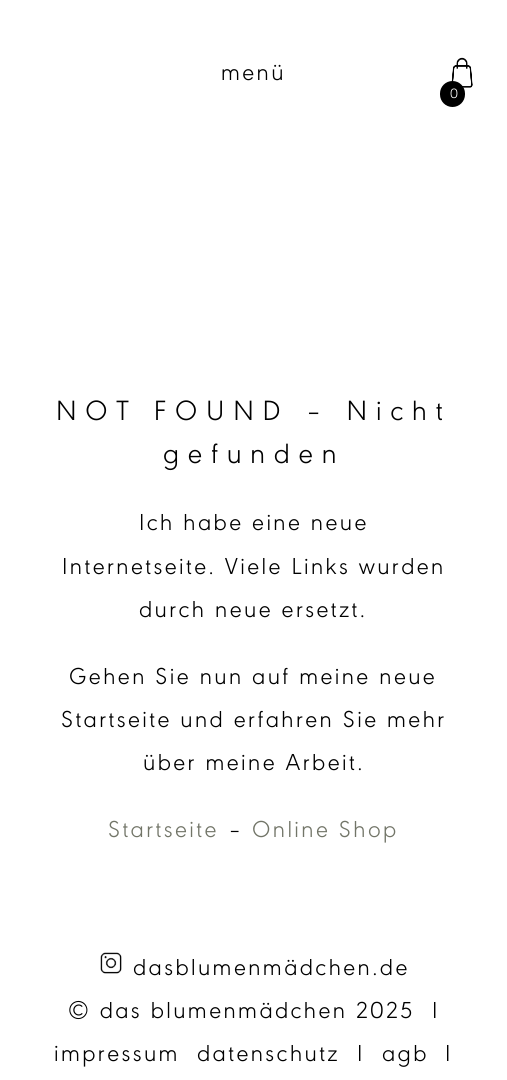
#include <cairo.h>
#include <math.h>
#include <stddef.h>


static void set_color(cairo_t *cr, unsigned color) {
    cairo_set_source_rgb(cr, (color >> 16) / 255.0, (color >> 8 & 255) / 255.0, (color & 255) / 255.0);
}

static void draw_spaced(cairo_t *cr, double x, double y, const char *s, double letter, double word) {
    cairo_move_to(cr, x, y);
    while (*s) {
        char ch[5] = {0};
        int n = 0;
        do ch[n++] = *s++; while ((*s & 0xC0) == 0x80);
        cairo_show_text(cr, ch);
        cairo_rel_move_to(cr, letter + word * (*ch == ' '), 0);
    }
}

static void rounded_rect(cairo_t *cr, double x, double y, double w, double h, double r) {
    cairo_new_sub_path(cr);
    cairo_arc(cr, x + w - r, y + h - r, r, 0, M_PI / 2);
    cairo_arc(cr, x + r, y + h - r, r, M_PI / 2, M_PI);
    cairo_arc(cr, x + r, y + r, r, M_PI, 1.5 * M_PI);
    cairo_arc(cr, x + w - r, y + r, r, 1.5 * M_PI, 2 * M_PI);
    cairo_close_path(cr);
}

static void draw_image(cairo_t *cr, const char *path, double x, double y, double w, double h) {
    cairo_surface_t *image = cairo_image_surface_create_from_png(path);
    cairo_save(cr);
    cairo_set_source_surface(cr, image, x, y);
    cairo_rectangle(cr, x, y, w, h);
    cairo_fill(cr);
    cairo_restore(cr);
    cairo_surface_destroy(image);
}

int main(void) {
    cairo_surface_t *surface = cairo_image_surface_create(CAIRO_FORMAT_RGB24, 507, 1080);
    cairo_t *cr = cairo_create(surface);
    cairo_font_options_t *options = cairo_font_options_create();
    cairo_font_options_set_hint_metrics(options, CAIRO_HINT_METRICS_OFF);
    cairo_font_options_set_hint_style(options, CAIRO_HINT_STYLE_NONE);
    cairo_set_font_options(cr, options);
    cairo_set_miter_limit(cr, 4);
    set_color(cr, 0xFFFFFF);
    cairo_paint(cr);
    cairo_select_font_face(cr, "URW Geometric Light", CAIRO_FONT_SLANT_NORMAL, CAIRO_FONT_WEIGHT_NORMAL);
    cairo_set_font_size(cr, 24);
    set_color(cr, 0x000000);
    draw_spaced(cr, 221, 80, "menü", 2.4, 0);
    draw_image(cr, "assets/img1.png", 451, 57, 22, 31);
    rounded_rect(cr, 440, 81, 25, 26, 12.5);
    cairo_fill(cr);
    cairo_set_font_size(cr, 14);
    set_color(cr, 0xFFFFFF);
    draw_spaced(cr, 450, 98, "0", 2.4, 0);
    cairo_set_font_size(cr, 29);
    set_color(cr, 0x000000);
    draw_spaced(cr, 56, 420, "NOT FOUND – Nicht", 8.75, 0);
    draw_spaced(cr, 163, 463, "gefunden", 8.75, 0);
    cairo_set_font_size(cr, 24);
    draw_spaced(cr, 139, 530, "Ich habe eine neue", 2.4, 0);
    draw_spaced(cr, 62, 574, "Internetseite. Viele Links wurden", 2.4, 0);
    draw_spaced(cr, 139, 617, "durch neue ersetzt.", 2.4, 0);
    draw_spaced(cr, 69, 684, "Gehen Sie nun auf meine neue", 2.4, 0);
    draw_spaced(cr, 61, 727, "Startseite und erfahren Sie mehr", 2.4, 0);
    draw_spaced(cr, 143, 770, "über meine Arbeit.", 2.4, 0);
    set_color(cr, 0x727568);
    draw_spaced(cr, 108, 837, "Startseite", 2.4, 0);
    set_color(cr, 0x000000);
    draw_spaced(cr, 228, 837, "–", 2.4, 0);
    set_color(cr, 0x727568);
    draw_spaced(cr, 252, 837, "Online Shop", 2.4, 0);
    draw_image(cr, "assets/img2.png", 100, 952, 22, 22);
    set_color(cr, 0x000000);
    draw_spaced(cr, 133, 975, "dasblumenmädchen.de", 2.4, 0);
    draw_spaced(cr, 68, 1018, "© das blumenmädchen 2025", 2.4, 0);
    draw_spaced(cr, 432, 1018, "I", 2.4, 0);
    draw_spaced(cr, 54, 1061, "impressum", 2.4, 0);
    draw_spaced(cr, 197, 1061, "datenschutz", 2.4, 0);
    draw_spaced(cr, 357, 1061, "I", 2.4, 0);
    draw_spaced(cr, 382, 1061, "agb", 2.4, 0);
    draw_spaced(cr, 445, 1061, "I", 2.4, 0);
    cairo_surface_write_to_png(surface, "output.png");
    cairo_font_options_destroy(options);
    cairo_destroy(cr);
    cairo_surface_destroy(surface);
    return 0;
}
